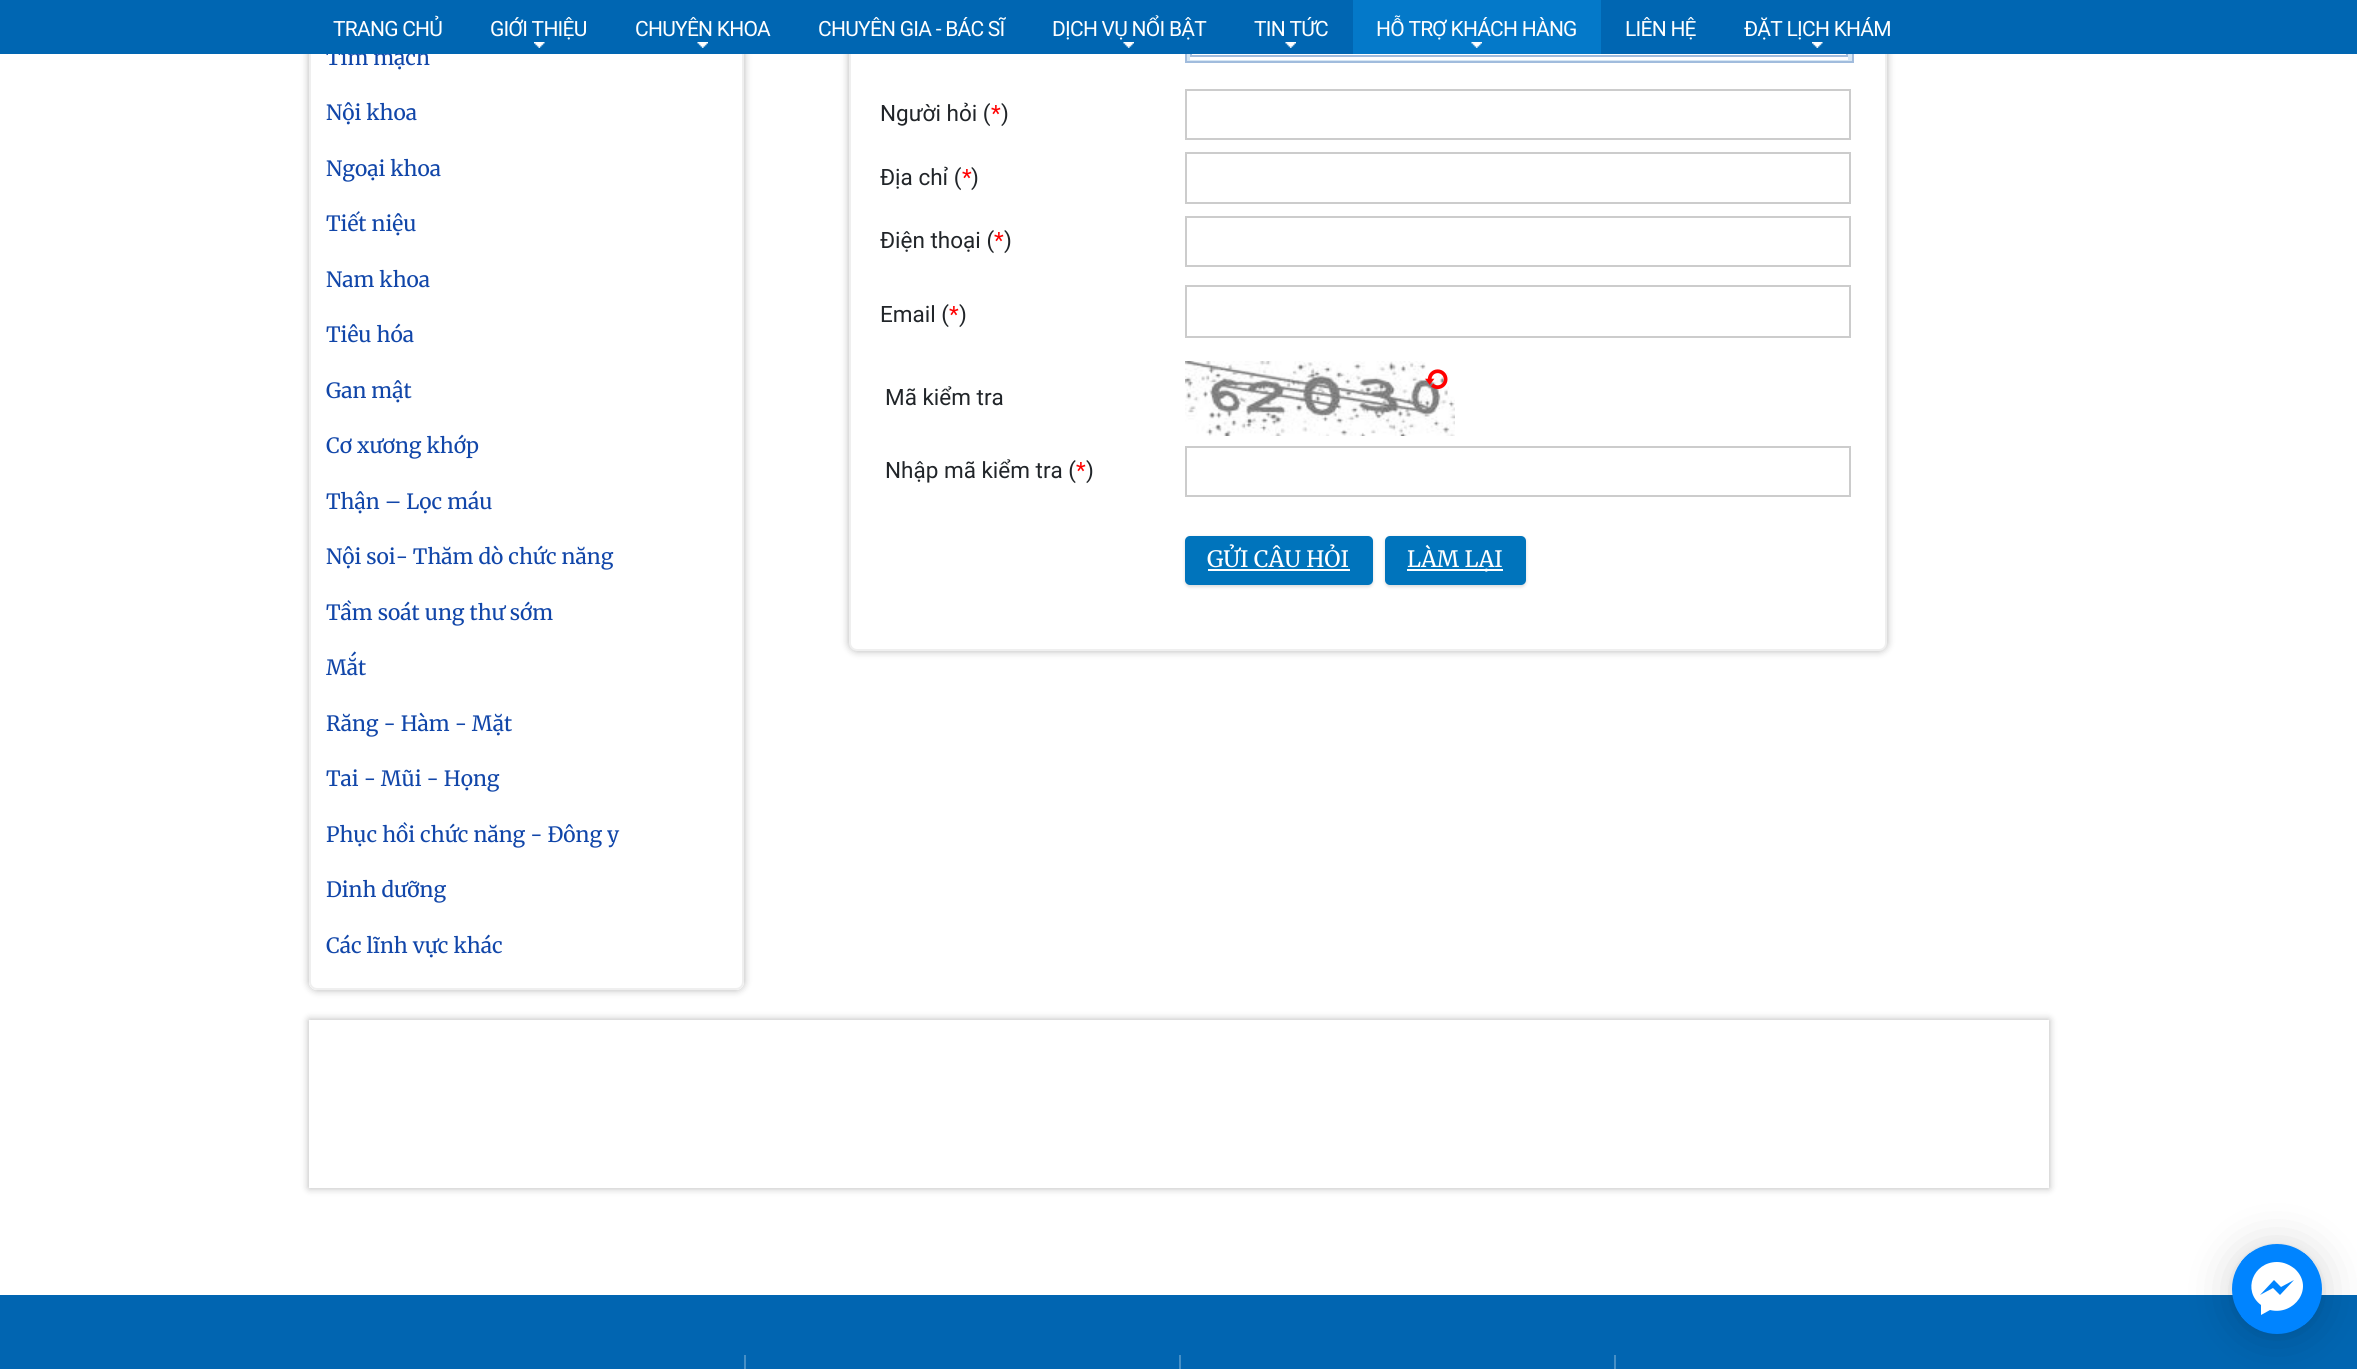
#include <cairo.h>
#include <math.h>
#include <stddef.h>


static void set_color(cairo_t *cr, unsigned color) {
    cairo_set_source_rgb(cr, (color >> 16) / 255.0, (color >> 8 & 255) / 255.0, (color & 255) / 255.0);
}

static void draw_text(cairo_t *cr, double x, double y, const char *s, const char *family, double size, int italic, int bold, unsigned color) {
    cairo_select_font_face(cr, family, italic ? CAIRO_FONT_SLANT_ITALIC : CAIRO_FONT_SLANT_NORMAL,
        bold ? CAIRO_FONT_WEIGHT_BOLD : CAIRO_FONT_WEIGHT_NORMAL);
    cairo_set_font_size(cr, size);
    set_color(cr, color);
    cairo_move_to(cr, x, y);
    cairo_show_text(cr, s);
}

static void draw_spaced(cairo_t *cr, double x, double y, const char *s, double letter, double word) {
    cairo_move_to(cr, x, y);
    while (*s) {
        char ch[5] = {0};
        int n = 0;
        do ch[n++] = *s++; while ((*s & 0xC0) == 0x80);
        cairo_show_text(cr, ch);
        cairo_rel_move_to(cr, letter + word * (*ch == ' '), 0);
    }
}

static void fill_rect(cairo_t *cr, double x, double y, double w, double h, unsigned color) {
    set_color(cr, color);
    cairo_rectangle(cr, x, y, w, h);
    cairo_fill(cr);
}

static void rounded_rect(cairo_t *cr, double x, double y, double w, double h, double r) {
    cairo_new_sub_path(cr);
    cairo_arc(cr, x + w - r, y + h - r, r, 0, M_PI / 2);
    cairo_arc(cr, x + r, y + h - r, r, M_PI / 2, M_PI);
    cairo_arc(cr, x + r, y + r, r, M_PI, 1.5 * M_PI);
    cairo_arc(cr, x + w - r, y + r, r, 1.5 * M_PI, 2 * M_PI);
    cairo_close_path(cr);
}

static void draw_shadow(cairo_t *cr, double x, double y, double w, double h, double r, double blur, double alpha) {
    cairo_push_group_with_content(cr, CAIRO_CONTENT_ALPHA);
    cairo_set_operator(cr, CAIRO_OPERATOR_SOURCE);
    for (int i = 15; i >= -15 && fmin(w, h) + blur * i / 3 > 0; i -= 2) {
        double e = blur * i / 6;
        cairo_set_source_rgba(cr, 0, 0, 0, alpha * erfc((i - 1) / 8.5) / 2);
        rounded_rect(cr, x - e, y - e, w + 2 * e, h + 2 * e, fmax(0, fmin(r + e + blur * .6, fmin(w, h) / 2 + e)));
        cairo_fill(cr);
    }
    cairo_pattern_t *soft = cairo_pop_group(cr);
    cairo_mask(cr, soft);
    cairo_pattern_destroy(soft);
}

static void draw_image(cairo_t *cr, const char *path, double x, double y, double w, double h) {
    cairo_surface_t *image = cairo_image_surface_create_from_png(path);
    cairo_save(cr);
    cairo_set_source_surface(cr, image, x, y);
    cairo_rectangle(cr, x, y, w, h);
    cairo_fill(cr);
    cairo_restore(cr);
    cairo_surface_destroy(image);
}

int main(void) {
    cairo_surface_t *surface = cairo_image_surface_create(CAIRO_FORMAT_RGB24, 2357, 1369);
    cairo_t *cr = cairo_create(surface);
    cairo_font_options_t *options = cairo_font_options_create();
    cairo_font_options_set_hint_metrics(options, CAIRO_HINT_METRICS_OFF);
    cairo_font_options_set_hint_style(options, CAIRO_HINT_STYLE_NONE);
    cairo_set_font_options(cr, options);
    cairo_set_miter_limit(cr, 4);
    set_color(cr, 0xFFFFFF);
    cairo_paint(cr);
    cairo_save(cr);
    cairo_set_fill_rule(cr, CAIRO_FILL_RULE_EVEN_ODD);
    cairo_new_path(cr);
    cairo_move_to(cr, 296, 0);
    cairo_line_to(cr, 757, 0);
    cairo_line_to(cr, 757, 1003);
    cairo_line_to(cr, 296, 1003);
    cairo_close_path(cr);
    cairo_move_to(cr, 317, -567);
    cairo_line_to(cr, 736, -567);
    cairo_curve_to(cr, 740.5, -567, 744, -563.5, 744, -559);
    cairo_line_to(cr, 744, 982);
    cairo_curve_to(cr, 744, 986.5, 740.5, 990, 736, 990);
    cairo_line_to(cr, 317, 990);
    cairo_curve_to(cr, 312.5, 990, 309, 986.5, 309, 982);
    cairo_line_to(cr, 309, -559);
    cairo_curve_to(cr, 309, -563.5, 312.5, -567, 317, -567);
    cairo_close_path(cr);
    cairo_clip(cr);
    set_color(cr, 0x000000);
    draw_shadow(cr, 309, -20, 435, 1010, 8, 4, 0.3);
    cairo_restore(cr);
    rounded_rect(cr, 310, -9, 433, 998, 7);
    set_color(cr, 0xEFEFEF);
    cairo_stroke(cr);
    draw_text(cr, 326, 65, "Tim mạch", "Merriweather", 21, 0, 0, 0x1146A9);
    set_color(cr, 0x000000);
    draw_shadow(cr, 849, -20, 1038, 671, 8, 4, 0.3);
    set_color(cr, 0xFFFFFF);
    rounded_rect(cr, 850, -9, 1036, 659, 7);
    cairo_fill_preserve(cr);
    set_color(cr, 0xEFEFEF);
    cairo_stroke(cr);
    fill_rect(cr, 1187, 54, 665, 7, 0xD6E6F4);
    cairo_rectangle(cr, 1186, -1, 667, 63);
    set_color(cr, 0xA1BCDD);
    cairo_stroke(cr);
    fill_rect(cr, 1190, 54, 658, 6, 0xFFFFFF);
    cairo_rectangle(cr, 1191, -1, 656, 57);
    set_color(cr, 0xA1BCDD);
    cairo_stroke(cr);
    fill_rect(cr, 0, 0, 2357, 54, 0x0066B2);
    cairo_select_font_face(cr, "Roboto", CAIRO_FONT_SLANT_NORMAL, CAIRO_FONT_WEIGHT_NORMAL);
    set_color(cr, 0xFFFFFF);
    draw_spaced(cr, 333, 36, "TRANG CHỦ", -0.75, 0);
    draw_image(cr, "assets/img1.png", 534, 42, 11, 6);
    draw_spaced(cr, 490, 36, "GIỚI THIỆU", -0.75, 0);
    draw_image(cr, "assets/img2.png", 697, 42, 11, 6);
    draw_spaced(cr, 635, 36, "CHUYÊN KHOA", -0.75, 0);
    draw_spaced(cr, 818, 36, "CHUYÊN GIA - BÁC SĨ", -0.75, 0);
    draw_image(cr, "assets/img2.png", 1123, 42, 11, 6);
    draw_spaced(cr, 1052, 36, "DỊCH VỤ NỔI BẬT", -0.75, 0);
    draw_image(cr, "assets/img2.png", 1285, 42, 11, 6);
    draw_spaced(cr, 1254, 36, "TIN TỨC", -0.75, 0);
    fill_rect(cr, 1353, 0, 248, 54, 0x0479C9);
    draw_image(cr, "assets/img3.png", 1471, 42, 11, 6);
    set_color(cr, 0xFFFFFF);
    draw_spaced(cr, 1376, 36, "HỖ TRỢ KHÁCH HÀNG", -0.75, 0);
    draw_spaced(cr, 1625, 36, "LIÊN HỆ", -0.75, 0);
    draw_image(cr, "assets/img1.png", 1812, 42, 11, 6);
    draw_spaced(cr, 1744, 36, "ĐẶT LỊCH KHÁM", -0.75, 0);
    draw_text(cr, 326, 120, "Nội khoa", "Merriweather", 21, 0, 0, 0x1146A9);
    draw_text(cr, 326, 176, "Ngoại khoa", "Merriweather", 21, 0, 0, 0x1146A9);
    draw_text(cr, 326, 231, "Tiết niệu", "Merriweather", 21, 0, 0, 0x1146A9);
    draw_text(cr, 326, 287, "Nam khoa", "Merriweather", 21, 0, 0, 0x1146A9);
    draw_text(cr, 326, 342, "Tiêu hóa", "Merriweather", 21, 0, 0, 0x1146A9);
    draw_text(cr, 326, 398, "Gan mật", "Merriweather", 21, 0, 0, 0x1146A9);
    draw_text(cr, 326, 453, "Cơ xương khớp", "Merriweather", 21, 0, 0, 0x1146A9);
    draw_text(cr, 326, 509, "Thận – Lọc máu", "Merriweather", 21, 0, 0, 0x1146A9);
    draw_text(cr, 326, 564, "Nội soi- Thăm dò chức năng", "Merriweather", 21, 0, 0, 0x1146A9);
    draw_text(cr, 326, 620, "Tầm soát ung thư sớm", "Merriweather", 21, 0, 0, 0x1146A9);
    draw_text(cr, 326, 675, "Mắt", "Merriweather", 21, 0, 0, 0x1146A9);
    draw_text(cr, 326, 731, "Răng - Hàm - Mặt", "Merriweather", 21, 0, 0, 0x1146A9);
    draw_text(cr, 326, 786, "Tai - Mũi - Họng", "Merriweather", 21, 0, 0, 0x1146A9);
    draw_text(cr, 326, 842, "Phục hồi chức năng - Đông y", "Merriweather", 21, 0, 0, 0x1146A9);
    draw_text(cr, 326, 897, "Dinh dưỡng", "Merriweather", 21, 0, 0, 0x1146A9);
    draw_text(cr, 326, 953, "Các lĩnh vực khác", "Merriweather", 21, 0, 0, 0x1146A9);
    cairo_save(cr);
    cairo_set_fill_rule(cr, CAIRO_FILL_RULE_EVEN_ODD);
    cairo_new_path(cr);
    cairo_move_to(cr, 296, 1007);
    cairo_line_to(cr, 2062, 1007);
    cairo_line_to(cr, 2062, 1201);
    cairo_line_to(cr, 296, 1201);
    cairo_close_path(cr);
    cairo_move_to(cr, 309, 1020);
    cairo_line_to(cr, 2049, 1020);
    cairo_line_to(cr, 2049, 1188);
    cairo_line_to(cr, 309, 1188);
    cairo_close_path(cr);
    cairo_clip(cr);
    set_color(cr, 0x000000);
    draw_shadow(cr, 309, 1020, 1740, 168, 0, 4, 0.3);
    cairo_restore(cr);
    draw_text(cr, 880, 121, "Người hỏi (", "Roboto", 22.5, 0, 0, 0x212529);
    draw_text(cr, 991, 121, "*", "Roboto", 22.5, 0, 0, 0xFF0000);
    draw_text(cr, 1001, 121, ")", "Roboto", 22.5, 0, 0, 0x212529);
    cairo_rectangle(cr, 1186, 90, 664, 49);
    set_color(cr, 0xCCCCCC);
    cairo_stroke(cr);
    draw_text(cr, 880, 185, "Địa chỉ (", "Roboto", 22.5, 0, 0, 0x212529);
    draw_text(cr, 962, 185, "*", "Roboto", 22.5, 0, 0, 0xFF0000);
    draw_text(cr, 971, 185, ")", "Roboto", 22.5, 0, 0, 0x212529);
    cairo_rectangle(cr, 1186, 153, 664, 50);
    set_color(cr, 0xCCCCCC);
    cairo_stroke(cr);
    draw_text(cr, 880, 248, "Điện thoại (", "Roboto", 22.5, 0, 0, 0x212529);
    draw_text(cr, 994, 248, "*", "Roboto", 22.5, 0, 0, 0xFF0000);
    draw_text(cr, 1004, 248, ")", "Roboto", 22.5, 0, 0, 0x212529);
    cairo_rectangle(cr, 1186, 217, 664, 49);
    set_color(cr, 0xCCCCCC);
    cairo_stroke(cr);
    draw_text(cr, 880, 322, "Email (", "Roboto", 22.5, 0, 0, 0x212529);
    draw_text(cr, 949, 322, "*", "Roboto", 22.5, 0, 0, 0xFF0000);
    draw_text(cr, 959, 322, ")", "Roboto", 22.5, 0, 0, 0x212529);
    cairo_rectangle(cr, 1186, 286, 664, 51);
    set_color(cr, 0xCCCCCC);
    cairo_stroke(cr);
    draw_text(cr, 885, 405, "Mã kiểm tra", "Roboto", 22.5, 0, 0, 0x212529);
    draw_image(cr, "assets/img4.png", 1185, 361, 270, 75);
    draw_image(cr, "assets/img5.png", 1425, 369, 23, 21);
    draw_text(cr, 885, 478, "Nhập mã kiểm tra (", "Roboto", 22.5, 0, 0, 0x212529);
    draw_text(cr, 1076, 478, "*", "Roboto", 22.5, 0, 0, 0xFF0000);
    draw_text(cr, 1086, 478, ")", "Roboto", 22.5, 0, 0, 0x212529);
    cairo_rectangle(cr, 1186, 447, 664, 49);
    set_color(cr, 0xCCCCCC);
    cairo_stroke(cr);
    set_color(cr, 0xDDDDDD);
    draw_shadow(cr, 1185, 537, 188, 50, 5, 1.5, 1);
    set_color(cr, 0x0074BC);
    rounded_rect(cr, 1185, 536, 188, 49, 5);
    cairo_fill(cr);
    draw_text(cr, 1207, 567, "GỬI CÂU HỎI", "Merriweather", 22.5, 0, 0, 0xFFFFFF);
    fill_rect(cr, 1208, 569, 142, 2, 0xFFFFFF);
    set_color(cr, 0xDDDDDD);
    draw_shadow(cr, 1385, 537, 141, 50, 5, 1.5, 1);
    set_color(cr, 0x0074BC);
    rounded_rect(cr, 1385, 536, 141, 49, 5);
    cairo_fill(cr);
    fill_rect(cr, 1407, 569, 96, 2, 0xFFFFFF);
    draw_text(cr, 1407, 567, "LÀM LẠI", "Merriweather", 22.5, 0, 0, 0xFFFFFF);
    fill_rect(cr, 0, 1295, 2357, 74, 0x0165B1);
    fill_rect(cr, 744, 1355, 2, 14, 0x468FC6);
    fill_rect(cr, 1179, 1355, 2, 14, 0x468FC6);
    fill_rect(cr, 1614, 1355, 2, 14, 0x468FC6);
    set_color(cr, 0x000000);
    draw_shadow(cr, 2232, 1247, 90, 90, 45, 24, 0.16);
    draw_shadow(cr, 2232, 1245, 90, 90, 45, 4.5, 0.06);
    set_color(cr, 0x0084FF);
    cairo_arc(cr, 2277, 1289, 45, 0, 2 * M_PI);
    cairo_fill(cr);
    cairo_save(cr);
    rounded_rect(cr, 2232, 1244, 90, 90, 45);
    cairo_clip(cr);
    fill_rect(cr, 2241, 1253, 72, 72, 0x0084FF);
    cairo_restore(cr);
    set_color(cr, 0xFFFFFF);
    cairo_new_path(cr);
    cairo_move_to(cr, 2277, 1262);
    cairo_curve_to(cr, 2253, 1262, 2242, 1291, 2261, 1305);
    cairo_line_to(cr, 2261, 1315);
    cairo_line_to(cr, 2270, 1310);
    cairo_curve_to(cr, 2294, 1316, 2315, 1288, 2295, 1269);
    cairo_curve_to(cr, 2290, 1265, 2284, 1262, 2277, 1262);
    cairo_close_path(cr);
    cairo_move_to(cr, 2280, 1295);
    cairo_line_to(cr, 2273, 1288);
    cairo_line_to(cr, 2260, 1295);
    cairo_line_to(cr, 2274, 1280);
    cairo_line_to(cr, 2281, 1287);
    cairo_line_to(cr, 2294, 1280);
    cairo_close_path(cr);
    cairo_fill(cr);
    cairo_surface_write_to_png(surface, "output.png");
    cairo_font_options_destroy(options);
    cairo_destroy(cr);
    cairo_surface_destroy(surface);
    return 0;
}
